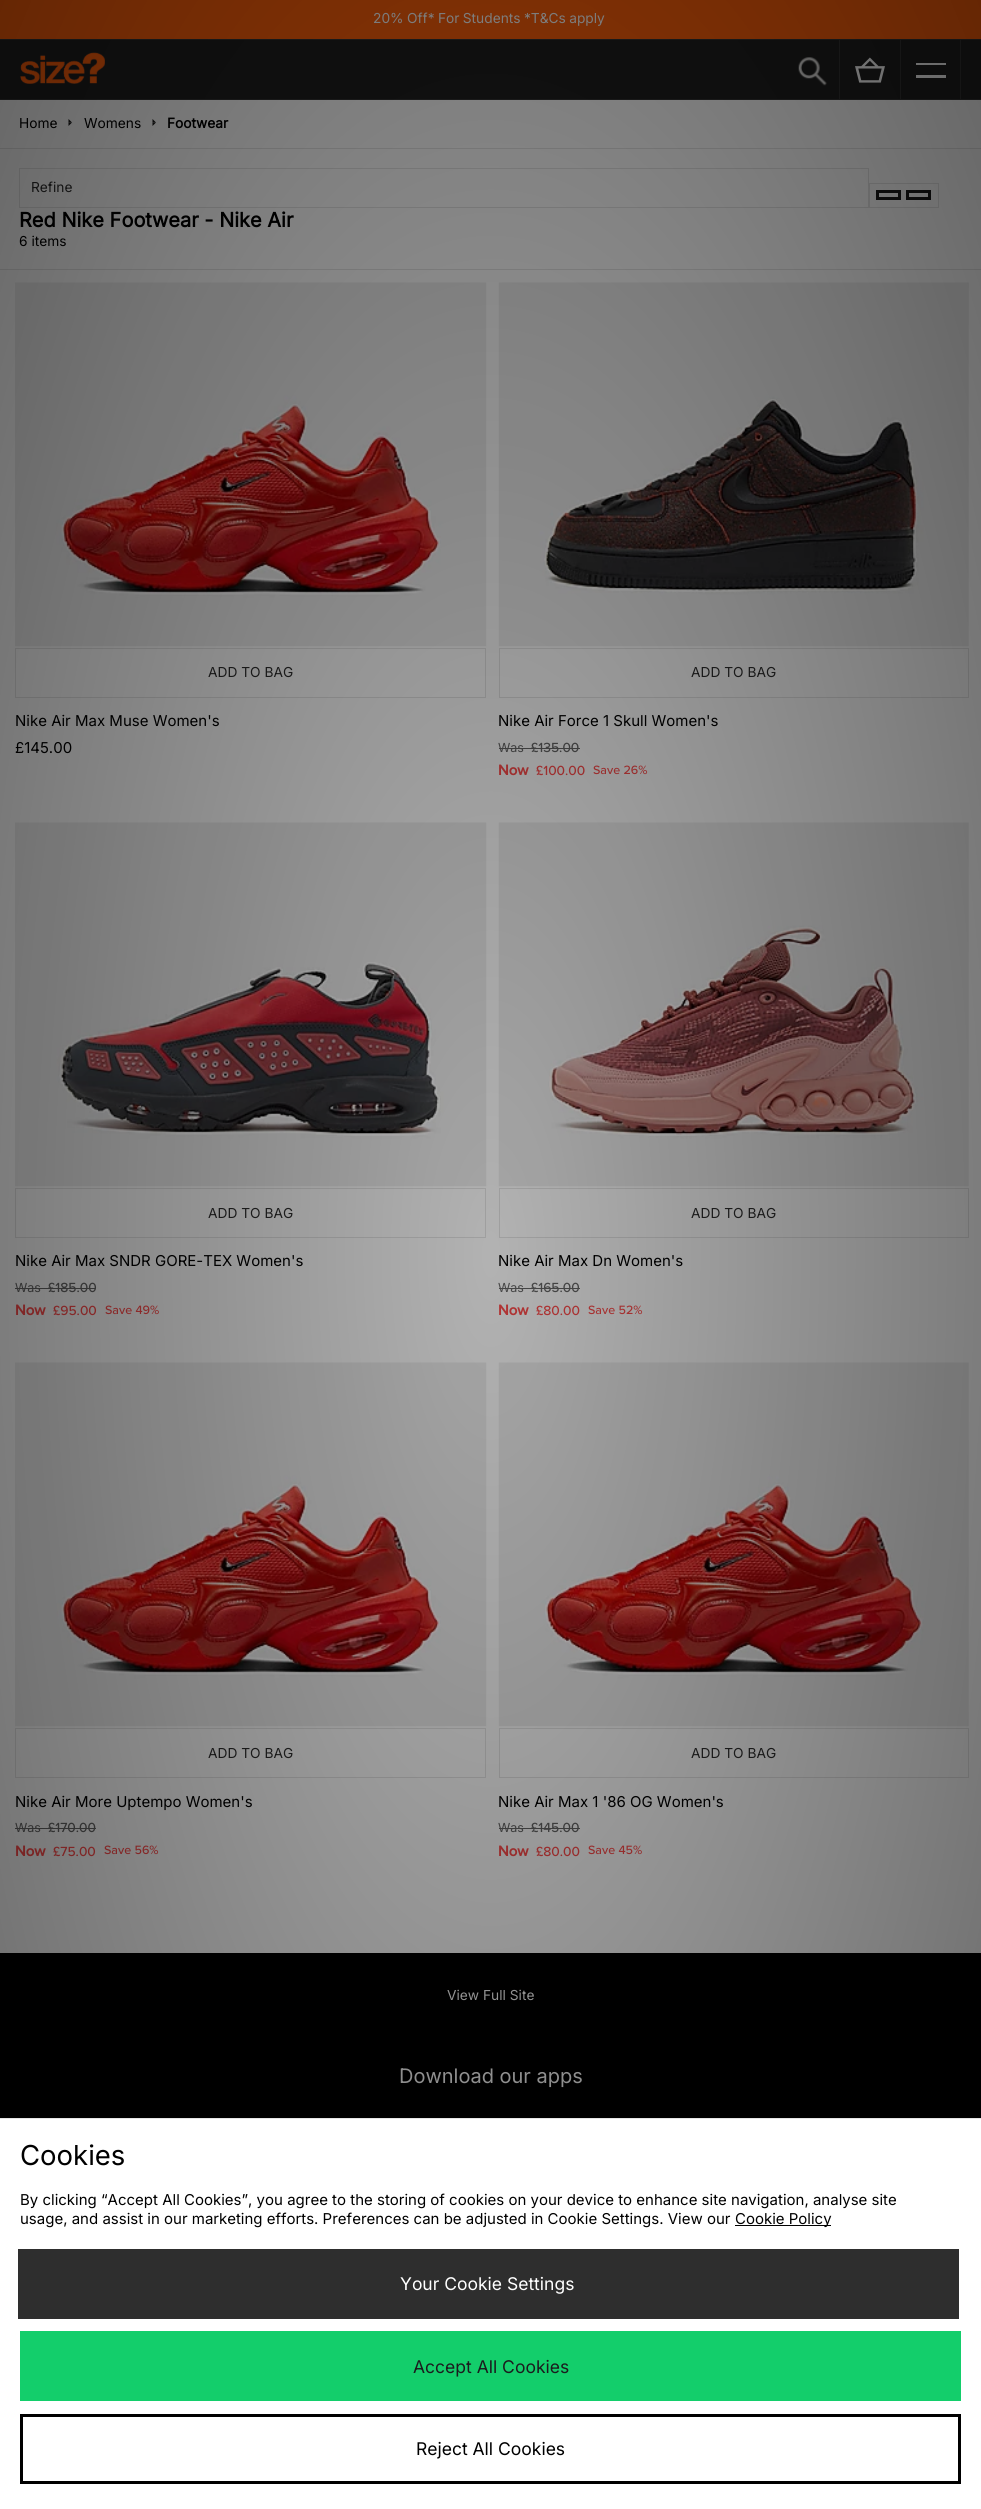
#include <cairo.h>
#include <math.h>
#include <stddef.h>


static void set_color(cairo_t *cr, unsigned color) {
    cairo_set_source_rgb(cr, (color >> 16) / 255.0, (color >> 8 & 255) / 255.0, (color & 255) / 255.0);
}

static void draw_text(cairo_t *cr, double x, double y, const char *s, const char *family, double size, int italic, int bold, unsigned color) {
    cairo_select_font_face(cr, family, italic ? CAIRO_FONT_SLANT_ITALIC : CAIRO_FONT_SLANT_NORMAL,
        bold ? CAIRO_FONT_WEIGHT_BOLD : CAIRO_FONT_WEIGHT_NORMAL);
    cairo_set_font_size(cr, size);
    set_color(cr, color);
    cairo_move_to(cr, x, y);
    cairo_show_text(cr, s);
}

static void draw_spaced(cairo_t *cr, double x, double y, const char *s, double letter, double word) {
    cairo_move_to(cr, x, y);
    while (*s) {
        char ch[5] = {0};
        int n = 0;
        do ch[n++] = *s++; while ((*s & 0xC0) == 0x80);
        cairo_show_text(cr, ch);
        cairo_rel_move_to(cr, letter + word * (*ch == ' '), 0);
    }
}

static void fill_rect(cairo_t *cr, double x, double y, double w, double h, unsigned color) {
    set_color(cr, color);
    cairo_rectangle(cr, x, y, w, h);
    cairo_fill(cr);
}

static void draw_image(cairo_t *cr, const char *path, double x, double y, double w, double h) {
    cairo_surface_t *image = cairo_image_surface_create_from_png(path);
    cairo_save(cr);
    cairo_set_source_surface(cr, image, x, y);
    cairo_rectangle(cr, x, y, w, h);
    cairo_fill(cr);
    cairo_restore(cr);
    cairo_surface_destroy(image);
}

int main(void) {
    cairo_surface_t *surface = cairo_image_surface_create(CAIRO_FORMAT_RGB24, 981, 2509);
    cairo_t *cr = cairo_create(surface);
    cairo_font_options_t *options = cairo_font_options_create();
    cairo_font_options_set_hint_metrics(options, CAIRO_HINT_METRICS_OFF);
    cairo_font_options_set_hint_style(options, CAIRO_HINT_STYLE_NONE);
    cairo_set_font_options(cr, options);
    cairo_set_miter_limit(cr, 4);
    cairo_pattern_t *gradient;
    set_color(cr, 0xFFFFFF);
    cairo_paint(cr);
    fill_rect(cr, 0, 40, 981, 59, 0x1F1F1F);
    fill_rect(cr, 0, 39, 981, 1, 0x333333);
    fill_rect(cr, 0, 0, 981, 39, 0xFF600B);
    cairo_select_font_face(cr, "Inter", CAIRO_FONT_SLANT_NORMAL, CAIRO_FONT_WEIGHT_NORMAL);
    cairo_set_font_size(cr, 13.75);
    set_color(cr, 0xFFFFFF);
    draw_spaced(cr, 373, 23, "20% Off* For Students *T&Cs apply", 0, -0.5);
    fill_rect(cr, 0, 99, 981, 1, 0x333333);
    draw_image(cr, "assets/img1.png", 20, 52, 85, 32);
    draw_image(cr, "assets/img2.png", 798, 57, 29, 29);
    fill_rect(cr, 900, 40, 1, 60, 0x333333);
    fill_rect(cr, 839, 40, 1, 60, 0x333333);
    draw_image(cr, "assets/img3.png", 855, 57, 30, 26);
    fill_rect(cr, 960, 40, 1, 60, 0x333333);
    fill_rect(cr, 916, 63, 30, 2, 0xFFFFFF);
    fill_rect(cr, 916, 75, 30, 3, 0xFFFFFF);
    fill_rect(cr, 0, 148, 981, 1, 0xE5E5E5);
    draw_text(cr, 19, 128, "Home", "Inter", 13.75, 0, 0, 0x000000);
    set_color(cr, 0x1A1A1A);
    cairo_new_path(cr);
    cairo_move_to(cr, 68.5, 119);
    cairo_line_to(cr, 72, 122.5);
    cairo_line_to(cr, 68.5, 122.5);
    cairo_close_path(cr);
    cairo_fill(cr);
    cairo_new_path(cr);
    cairo_move_to(cr, 72, 122.5);
    cairo_line_to(cr, 68.5, 126);
    cairo_line_to(cr, 68.5, 122.5);
    cairo_close_path(cr);
    cairo_fill(cr);
    draw_text(cr, 84, 128, "Womens", "Inter", 13.75, 0, 0, 0x000000);
    set_color(cr, 0x1A1A1A);
    cairo_new_path(cr);
    cairo_move_to(cr, 152.5, 119);
    cairo_line_to(cr, 156, 122.5);
    cairo_line_to(cr, 152.5, 122.5);
    cairo_close_path(cr);
    cairo_fill(cr);
    cairo_new_path(cr);
    cairo_move_to(cr, 156, 122.5);
    cairo_line_to(cr, 152.5, 126);
    cairo_line_to(cr, 152.5, 122.5);
    cairo_close_path(cr);
    cairo_fill(cr);
    draw_text(cr, 167, 128, "Footwear", "Inter", 13.75, 0, 1, 0x000000);
    fill_rect(cr, 0, 269, 981, 1, 0xE5E5E5);
    cairo_rectangle(cr, 19.5, 168.5, 849, 39);
    cairo_set_line_width(cr, 1);
    cairo_stroke(cr);
    draw_text(cr, 31, 192, "Refine", "Inter", 13.75, 0, 0, 0x2E2E2E);
    cairo_rectangle(cr, 869.5, 183.5, 69, 24);
    set_color(cr, 0xE5E5E5);
    cairo_stroke(cr);
    cairo_rectangle(cr, 877.5, 191.5, 22, 7);
    set_color(cr, 0x1A1A1A);
    cairo_set_line_width(cr, 3);
    cairo_stroke(cr);
    cairo_rectangle(cr, 907.5, 191.5, 22, 7);
    cairo_stroke(cr);
    draw_text(cr, 19, 227, "Red Nike Footwear - Nike Air", "Inter", 20, 0, 1, 0x000000);
    draw_text(cr, 19, 246, "6 items", "Inter", 13.75, 0, 0, 0x000000);
    draw_image(cr, "assets/img4.png", 15, 282, 472, 365);
    cairo_rectangle(cr, 15.5, 648.5, 470, 49);
    set_color(cr, 0xE5E5E5);
    cairo_set_line_width(cr, 1);
    cairo_stroke(cr);
    draw_text(cr, 208, 677, "ADD TO BAG", "Inter", 13.75, 0, 0, 0x2E2E2E);
    draw_text(cr, 15, 726, "Nike Air Max Muse Women's", "Inter", 15, 0, 0, 0x000000);
    draw_text(cr, 15, 753, "£145.00", "Inter", 15, 0, 0, 0x000000);
    draw_image(cr, "assets/img5.png", 498, 282, 471, 365);
    cairo_rectangle(cr, 499.5, 648.5, 469, 49);
    set_color(cr, 0xE5E5E5);
    cairo_stroke(cr);
    draw_text(cr, 691, 677, "ADD TO BAG", "Inter", 13.75, 0, 0, 0x2E2E2E);
    draw_text(cr, 498, 726, "Nike Air Force 1 Skull Women's", "Inter", 15, 0, 0, 0x000000);
    draw_text(cr, 498, 752, "Was", "Inter", 12.5, 0, 0, 0x666666);
    fill_rect(cr, 499, 748, 32, 1, 0x666666);
    draw_text(cr, 531, 752, "£135.00", "Proxima Nova Medium", 13.75, 0, 0, 0x666666);
    fill_rect(cr, 531, 748, 49, 1, 0x666666);
    draw_text(cr, 498, 775, "Now", "Proxima Nova", 15, 0, 1, 0xFF4C4C);
    draw_text(cr, 536, 775, "£100.00", "Proxima Nova Medium", 13.75, 0, 0, 0xFF4C4C);
    draw_text(cr, 593, 774, "Save 26%", "Proxima Nova Medium", 12.5, 0, 0, 0xFF4C4C);
    draw_image(cr, "assets/img6.png", 15, 822, 472, 365);
    cairo_rectangle(cr, 15.5, 1188.5, 470, 49);
    set_color(cr, 0xE5E5E5);
    cairo_stroke(cr);
    draw_text(cr, 208, 1218, "ADD TO BAG", "Inter", 13.75, 0, 0, 0x2E2E2E);
    draw_text(cr, 15, 1266, "Nike Air Max SNDR GORE-TEX Women's", "Inter", 15, 0, 0, 0x000000);
    draw_text(cr, 15, 1292, "Was", "Inter", 12.5, 0, 0, 0x666666);
    fill_rect(cr, 15, 1288, 33, 1, 0x666666);
    draw_text(cr, 48, 1292, "£185.00", "Proxima Nova Medium", 13.75, 0, 0, 0x666666);
    fill_rect(cr, 48, 1288, 48, 1, 0x666666);
    draw_text(cr, 15, 1315, "Now", "Proxima Nova", 15, 0, 1, 0xFF4C4C);
    draw_text(cr, 53, 1315, "£95.00", "Proxima Nova Medium", 13.75, 0, 0, 0xFF4C4C);
    draw_text(cr, 105, 1314, "Save 49%", "Proxima Nova Medium", 12.5, 0, 0, 0xFF4C4C);
    draw_image(cr, "assets/img7.png", 498, 822, 471, 365);
    cairo_rectangle(cr, 499.5, 1188.5, 469, 49);
    set_color(cr, 0xE5E5E5);
    cairo_stroke(cr);
    draw_text(cr, 691, 1218, "ADD TO BAG", "Inter", 13.75, 0, 0, 0x2E2E2E);
    draw_text(cr, 498, 1266, "Nike Air Max Dn Women's", "Inter", 15, 0, 0, 0x000000);
    draw_text(cr, 498, 1292, "Was", "Inter", 12.5, 0, 0, 0x666666);
    fill_rect(cr, 499, 1288, 32, 1, 0x666666);
    draw_text(cr, 531, 1292, "£165.00", "Proxima Nova Medium", 13.75, 0, 0, 0x666666);
    fill_rect(cr, 531, 1288, 49, 1, 0x666666);
    draw_text(cr, 498, 1315, "Now", "Proxima Nova", 15, 0, 1, 0xFF4C4C);
    draw_text(cr, 536, 1315, "£80.00", "Proxima Nova Medium", 13.75, 0, 0, 0xFF4C4C);
    draw_text(cr, 588, 1314, "Save 52%", "Proxima Nova Medium", 12.5, 0, 0, 0xFF4C4C);
    draw_image(cr, "assets/img4.png", 15, 1362, 472, 365);
    cairo_rectangle(cr, 15.5, 1728.5, 470, 49);
    set_color(cr, 0xE5E5E5);
    cairo_stroke(cr);
    draw_text(cr, 208, 1758, "ADD TO BAG", "Inter", 13.75, 0, 0, 0x2E2E2E);
    draw_text(cr, 15, 1807, "Nike Air More Uptempo Women's", "Inter", 15, 0, 0, 0x000000);
    draw_text(cr, 15, 1832, "Was", "Inter", 12.5, 0, 0, 0x666666);
    fill_rect(cr, 15, 1828, 33, 1, 0x666666);
    draw_text(cr, 48, 1832, "£170.00", "Proxima Nova Medium", 13.75, 0, 0, 0x666666);
    fill_rect(cr, 48, 1828, 48, 1, 0x666666);
    draw_text(cr, 15, 1856, "Now", "Proxima Nova", 15, 0, 1, 0xFF4C4C);
    draw_text(cr, 53, 1856, "£75.00", "Proxima Nova Medium", 13.75, 0, 0, 0xFF4C4C);
    draw_text(cr, 104, 1854, "Save 56%", "Proxima Nova Medium", 12.5, 0, 0, 0xFF4C4C);
    draw_image(cr, "assets/img8.png", 498, 1362, 471, 365);
    cairo_rectangle(cr, 499.5, 1728.5, 469, 49);
    set_color(cr, 0xE5E5E5);
    cairo_stroke(cr);
    draw_text(cr, 691, 1758, "ADD TO BAG", "Inter", 13.75, 0, 0, 0x2E2E2E);
    draw_text(cr, 498, 1807, "Nike Air Max 1 '86 OG Women's", "Inter", 15, 0, 0, 0x000000);
    draw_text(cr, 498, 1832, "Was", "Inter", 12.5, 0, 0, 0x666666);
    fill_rect(cr, 499, 1828, 32, 1, 0x666666);
    draw_text(cr, 531, 1832, "£145.00", "Proxima Nova Medium", 13.75, 0, 0, 0x666666);
    fill_rect(cr, 531, 1828, 49, 1, 0x666666);
    draw_text(cr, 498, 1856, "Now", "Proxima Nova", 15, 0, 1, 0xFF4C4C);
    draw_text(cr, 536, 1856, "£80.00", "Proxima Nova Medium", 13.75, 0, 0, 0xFF4C4C);
    draw_text(cr, 588, 1854, "Save 45%", "Proxima Nova Medium", 12.5, 0, 0, 0xFF4C4C);
    fill_rect(cr, 0, 1953, 981, 165, 0x000000);
    draw_text(cr, 447, 2000, "View Full Site", "Inter", 13.75, 0, 0, 0xFFFFFF);
    draw_text(cr, 399, 2083, "Download our apps", "Inter", 20, 0, 0, 0xFFFFFF);
    gradient = cairo_pattern_create_radial(0, 0, 0, 0, 0, 1);
    cairo_pattern_set_matrix(gradient, &(cairo_matrix_t){1.0 / 694, 0, 0, 1.0 / 1775, -1.0 * 491 / 694, -1.0 * 1255 / 1775});
    cairo_pattern_add_color_stop_rgba(gradient, 0, 0, 0, 0, 0.3);
    cairo_pattern_add_color_stop_rgba(gradient, 1, 0, 0, 0, 0.6);
    cairo_set_source(cr, gradient);
    cairo_pattern_destroy(gradient);
    cairo_rectangle(cr, 0, 0, 981, 2088);
    cairo_fill(cr);
    fill_rect(cr, 0, 2118, 981, 1, 0xE5E5E5);
    draw_text(cr, 20, 2165, "Cookies", "Inter", 27.5, 0, 0, 0x000000);
    draw_text(cr, 20, 2205, "By clicking “Accept All Cookies”, you agree to the storing of cookies on your device to enhance site navigation, analyse site", "Inter", 15, 0, 0, 0x000000);
    draw_text(cr, 20, 2224, "usage, and assist in our marketing efforts. Preferences can be adjusted in Cookie Settings. View our", "Inter", 15, 0, 0, 0x000000);
    fill_rect(cr, 735, 2225, 96, 1, 0x000000);
    draw_text(cr, 735, 2224, "Cookie Policy", "Inter", 15, 0, 0, 0x000000);
    fill_rect(cr, 18, 2249, 941, 70, 0x2E2E2E);
    draw_text(cr, 400, 2290, "Your Cookie Settings", "Inter", 17.5, 0, 0, 0xFFFFFF);
    fill_rect(cr, 20, 2331, 941, 70, 0x13CE6B);
    draw_text(cr, 413, 2373, "Accept All Cookies", "Inter", 17.5, 0, 0, 0x1B1C1E);
    cairo_rectangle(cr, 21.5, 2415.5, 938, 67);
    set_color(cr, 0x000000);
    cairo_set_line_width(cr, 3);
    cairo_stroke(cr);
    draw_text(cr, 416, 2455, "Reject All Cookies", "Inter", 17.5, 0, 0, 0x000000);
    cairo_surface_write_to_png(surface, "output.png");
    cairo_font_options_destroy(options);
    cairo_destroy(cr);
    cairo_surface_destroy(surface);
    return 0;
}
